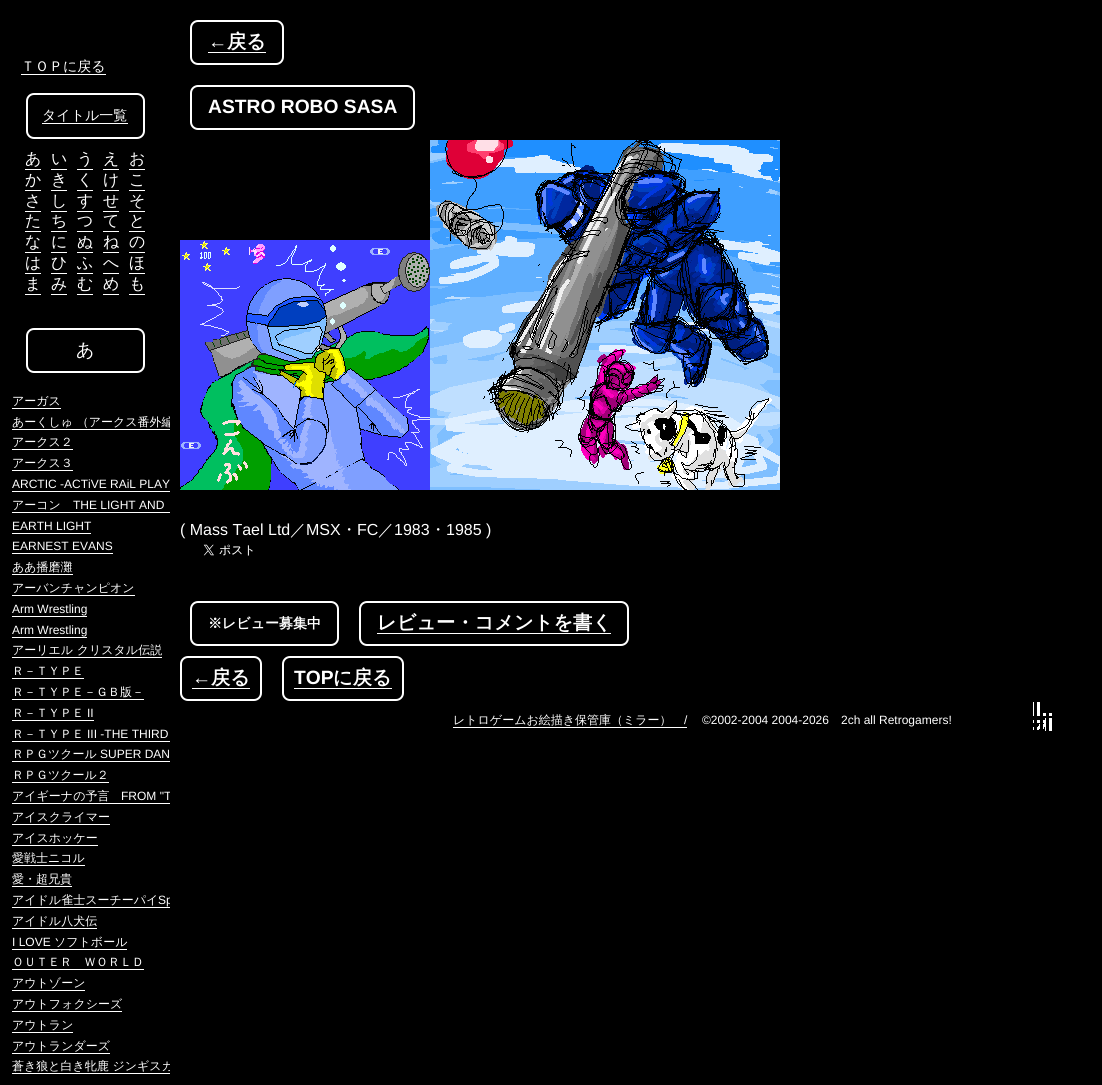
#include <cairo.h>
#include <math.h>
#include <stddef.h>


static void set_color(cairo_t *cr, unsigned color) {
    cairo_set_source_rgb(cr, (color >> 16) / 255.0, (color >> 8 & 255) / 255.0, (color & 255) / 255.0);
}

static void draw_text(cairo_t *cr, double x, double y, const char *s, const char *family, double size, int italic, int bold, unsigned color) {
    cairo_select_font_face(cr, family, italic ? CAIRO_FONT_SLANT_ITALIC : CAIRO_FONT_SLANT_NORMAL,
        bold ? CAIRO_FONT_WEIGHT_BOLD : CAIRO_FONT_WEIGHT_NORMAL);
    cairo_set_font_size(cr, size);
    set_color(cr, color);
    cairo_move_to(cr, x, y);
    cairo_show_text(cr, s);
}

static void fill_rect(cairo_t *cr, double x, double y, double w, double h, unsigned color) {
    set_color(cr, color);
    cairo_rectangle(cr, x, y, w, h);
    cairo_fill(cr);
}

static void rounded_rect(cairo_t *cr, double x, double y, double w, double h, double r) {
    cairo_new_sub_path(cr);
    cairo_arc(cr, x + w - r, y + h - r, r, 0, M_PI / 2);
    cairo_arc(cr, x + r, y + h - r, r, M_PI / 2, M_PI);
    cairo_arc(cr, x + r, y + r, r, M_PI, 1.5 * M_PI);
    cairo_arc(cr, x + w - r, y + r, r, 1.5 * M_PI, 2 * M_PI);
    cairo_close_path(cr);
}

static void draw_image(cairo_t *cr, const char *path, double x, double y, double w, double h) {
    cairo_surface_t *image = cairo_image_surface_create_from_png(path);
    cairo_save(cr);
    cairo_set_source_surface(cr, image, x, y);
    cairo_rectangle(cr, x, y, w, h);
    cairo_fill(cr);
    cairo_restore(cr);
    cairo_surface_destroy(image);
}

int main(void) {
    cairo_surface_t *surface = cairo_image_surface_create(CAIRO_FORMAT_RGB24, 1102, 1085);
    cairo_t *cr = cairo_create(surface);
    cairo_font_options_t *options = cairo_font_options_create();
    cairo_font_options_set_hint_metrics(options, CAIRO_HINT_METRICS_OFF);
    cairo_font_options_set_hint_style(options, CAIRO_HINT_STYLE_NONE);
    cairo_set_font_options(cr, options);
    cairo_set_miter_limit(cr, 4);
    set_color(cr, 0x000000);
    cairo_paint(cr);
    draw_text(cr, 21, 71, "ＴＯＰに戻る", "WenQuanYi Zen Hei Medium", 14, 0, 0, 0xFFFFFF);
    fill_rect(cr, 21, 74, 85, 1, 0xFFFFFF);
    rounded_rect(cr, 27, 94, 117, 44, 7);
    cairo_stroke(cr);
    draw_text(cr, 42, 120, "タイトル一覧", "WenQuanYi Zen Hei Medium", 14, 0, 0, 0xFFFFFF);
    fill_rect(cr, 42, 123, 86, 1, 0xFFFFFF);
    draw_text(cr, 25, 164, "あ", "WenQuanYi Zen Hei Medium", 16, 0, 0, 0xFFFFFF);
    fill_rect(cr, 25, 169, 16, 1, 0xFFFFFF);
    draw_text(cr, 51, 164, "い", "WenQuanYi Zen Hei Medium", 16, 0, 0, 0xFFFFFF);
    fill_rect(cr, 51, 169, 16, 1, 0xFFFFFF);
    draw_text(cr, 77, 164, "う", "WenQuanYi Zen Hei Medium", 16, 0, 0, 0xFFFFFF);
    fill_rect(cr, 77, 169, 16, 1, 0xFFFFFF);
    draw_text(cr, 103, 164, "え", "WenQuanYi Zen Hei Medium", 16, 0, 0, 0xFFFFFF);
    fill_rect(cr, 103, 169, 16, 1, 0xFFFFFF);
    draw_text(cr, 129, 164, "お", "WenQuanYi Zen Hei Medium", 16, 0, 0, 0xFFFFFF);
    fill_rect(cr, 129, 169, 16, 1, 0xFFFFFF);
    draw_text(cr, 25, 185, "か", "WenQuanYi Zen Hei Medium", 16, 0, 0, 0xFFFFFF);
    fill_rect(cr, 25, 190, 16, 1, 0xFFFFFF);
    draw_text(cr, 51, 185, "き", "WenQuanYi Zen Hei Medium", 16, 0, 0, 0xFFFFFF);
    fill_rect(cr, 51, 190, 16, 1, 0xFFFFFF);
    draw_text(cr, 77, 185, "く", "WenQuanYi Zen Hei Medium", 16, 0, 0, 0xFFFFFF);
    fill_rect(cr, 77, 190, 16, 1, 0xFFFFFF);
    draw_text(cr, 103, 185, "け", "WenQuanYi Zen Hei Medium", 16, 0, 0, 0xFFFFFF);
    fill_rect(cr, 103, 190, 16, 1, 0xFFFFFF);
    draw_text(cr, 129, 185, "こ", "WenQuanYi Zen Hei Medium", 16, 0, 0, 0xFFFFFF);
    fill_rect(cr, 129, 190, 16, 1, 0xFFFFFF);
    draw_text(cr, 25, 206, "さ", "WenQuanYi Zen Hei Medium", 16, 0, 0, 0xFFFFFF);
    fill_rect(cr, 25, 211, 16, 1, 0xFFFFFF);
    draw_text(cr, 51, 206, "し", "WenQuanYi Zen Hei Medium", 16, 0, 0, 0xFFFFFF);
    fill_rect(cr, 51, 211, 16, 1, 0xFFFFFF);
    draw_text(cr, 77, 206, "す", "WenQuanYi Zen Hei Medium", 16, 0, 0, 0xFFFFFF);
    fill_rect(cr, 77, 211, 16, 1, 0xFFFFFF);
    draw_text(cr, 103, 206, "せ", "WenQuanYi Zen Hei Medium", 16, 0, 0, 0xFFFFFF);
    fill_rect(cr, 103, 211, 16, 1, 0xFFFFFF);
    draw_text(cr, 129, 206, "そ", "WenQuanYi Zen Hei Medium", 16, 0, 0, 0xFFFFFF);
    fill_rect(cr, 129, 211, 16, 1, 0xFFFFFF);
    draw_text(cr, 25, 226, "た", "WenQuanYi Zen Hei Medium", 16, 0, 0, 0xFFFFFF);
    fill_rect(cr, 25, 231, 16, 1, 0xFFFFFF);
    draw_text(cr, 51, 226, "ち", "WenQuanYi Zen Hei Medium", 16, 0, 0, 0xFFFFFF);
    fill_rect(cr, 51, 231, 16, 1, 0xFFFFFF);
    draw_text(cr, 77, 226, "つ", "WenQuanYi Zen Hei Medium", 16, 0, 0, 0xFFFFFF);
    fill_rect(cr, 77, 231, 16, 1, 0xFFFFFF);
    draw_text(cr, 103, 226, "て", "WenQuanYi Zen Hei Medium", 16, 0, 0, 0xFFFFFF);
    fill_rect(cr, 103, 231, 16, 1, 0xFFFFFF);
    draw_text(cr, 129, 226, "と", "WenQuanYi Zen Hei Medium", 16, 0, 0, 0xFFFFFF);
    fill_rect(cr, 129, 231, 16, 1, 0xFFFFFF);
    draw_text(cr, 25, 247, "な", "WenQuanYi Zen Hei Medium", 16, 0, 0, 0xFFFFFF);
    fill_rect(cr, 25, 252, 16, 1, 0xFFFFFF);
    draw_text(cr, 51, 247, "に", "WenQuanYi Zen Hei Medium", 16, 0, 0, 0xFFFFFF);
    fill_rect(cr, 51, 252, 16, 1, 0xFFFFFF);
    draw_text(cr, 77, 247, "ぬ", "WenQuanYi Zen Hei Medium", 16, 0, 0, 0xFFFFFF);
    fill_rect(cr, 77, 252, 16, 1, 0xFFFFFF);
    draw_text(cr, 103, 247, "ね", "WenQuanYi Zen Hei Medium", 16, 0, 0, 0xFFFFFF);
    fill_rect(cr, 103, 252, 16, 1, 0xFFFFFF);
    draw_text(cr, 129, 247, "の", "WenQuanYi Zen Hei Medium", 16, 0, 0, 0xFFFFFF);
    fill_rect(cr, 129, 252, 16, 1, 0xFFFFFF);
    draw_text(cr, 25, 268, "は", "WenQuanYi Zen Hei Medium", 16, 0, 0, 0xFFFFFF);
    fill_rect(cr, 25, 273, 16, 1, 0xFFFFFF);
    draw_text(cr, 51, 268, "ひ", "WenQuanYi Zen Hei Medium", 16, 0, 0, 0xFFFFFF);
    fill_rect(cr, 51, 273, 16, 1, 0xFFFFFF);
    draw_text(cr, 77, 268, "ふ", "WenQuanYi Zen Hei Medium", 16, 0, 0, 0xFFFFFF);
    fill_rect(cr, 77, 273, 16, 1, 0xFFFFFF);
    draw_text(cr, 103, 268, "へ", "WenQuanYi Zen Hei Medium", 16, 0, 0, 0xFFFFFF);
    fill_rect(cr, 103, 273, 16, 1, 0xFFFFFF);
    draw_text(cr, 129, 268, "ほ", "WenQuanYi Zen Hei Medium", 16, 0, 0, 0xFFFFFF);
    fill_rect(cr, 129, 273, 16, 1, 0xFFFFFF);
    draw_text(cr, 25, 289, "ま", "WenQuanYi Zen Hei Medium", 16, 0, 0, 0xFFFFFF);
    fill_rect(cr, 25, 294, 16, 1, 0xFFFFFF);
    draw_text(cr, 51, 289, "み", "WenQuanYi Zen Hei Medium", 16, 0, 0, 0xFFFFFF);
    fill_rect(cr, 51, 294, 16, 1, 0xFFFFFF);
    draw_text(cr, 77, 289, "む", "WenQuanYi Zen Hei Medium", 16, 0, 0, 0xFFFFFF);
    fill_rect(cr, 77, 294, 16, 1, 0xFFFFFF);
    draw_text(cr, 103, 289, "め", "WenQuanYi Zen Hei Medium", 16, 0, 0, 0xFFFFFF);
    fill_rect(cr, 103, 294, 16, 1, 0xFFFFFF);
    draw_text(cr, 129, 289, "も", "WenQuanYi Zen Hei Medium", 16, 0, 0, 0xFFFFFF);
    fill_rect(cr, 129, 294, 16, 1, 0xFFFFFF);
    rounded_rect(cr, 27, 329, 117, 43, 7);
    cairo_stroke(cr);
    draw_text(cr, 76, 356, "あ", "WenQuanYi Zen Hei Medium", 18, 0, 0, 0xFFFFFF);
    draw_text(cr, 12, 405, "アーガス", "WenQuanYi Zen Hei Medium", 12, 0, 0, 0xFFFFFF);
    fill_rect(cr, 12, 408, 49, 1, 0xFFFFFF);
    cairo_save(cr);
    cairo_rectangle(cr, 0, 300, 170, 785);
    cairo_clip(cr);
    draw_text(cr, 12, 426, "あーくしゅ （アークス番外編", "WenQuanYi Zen Hei Medium", 12, 0, 0, 0xFFFFFF);
    cairo_restore(cr);
    fill_rect(cr, 12, 429, 158, 1, 0xFFFFFF);
    draw_text(cr, 12, 446, "アークス２", "WenQuanYi Zen Hei Medium", 12, 0, 0, 0xFFFFFF);
    fill_rect(cr, 12, 449, 61, 1, 0xFFFFFF);
    draw_text(cr, 12, 467, "アークス３", "WenQuanYi Zen Hei Medium", 12, 0, 0, 0xFFFFFF);
    fill_rect(cr, 12, 470, 61, 1, 0xFFFFFF);
    draw_text(cr, 12, 488, "ARCTIC -ACTiVE RAiL PLAY", "Liberation Sans", 12, 0, 0, 0xFFFFFF);
    fill_rect(cr, 12, 491, 158, 1, 0xFFFFFF);
    draw_text(cr, 12, 509, "アーコン", "WenQuanYi Zen Hei Medium", 12, 0, 0, 0xFFFFFF);
    fill_rect(cr, 12, 512, 158, 1, 0xFFFFFF);
    draw_text(cr, 73, 509, "THE LIGHT AND", "Liberation Sans", 12, 0, 0, 0xFFFFFF);
    draw_text(cr, 12, 530, "EARTH LIGHT", "Liberation Sans", 12, 0, 0, 0xFFFFFF);
    fill_rect(cr, 12, 533, 79, 1, 0xFFFFFF);
    draw_text(cr, 12, 550, "EARNEST EVANS", "Liberation Sans", 12, 0, 0, 0xFFFFFF);
    fill_rect(cr, 12, 553, 101, 1, 0xFFFFFF);
    draw_text(cr, 12, 571, "ああ播磨灘", "WenQuanYi Zen Hei Medium", 12, 0, 0, 0xFFFFFF);
    fill_rect(cr, 12, 574, 61, 1, 0xFFFFFF);
    draw_text(cr, 12, 592, "アーバンチャンピオン", "WenQuanYi Zen Hei Medium", 12, 0, 0, 0xFFFFFF);
    fill_rect(cr, 12, 595, 123, 1, 0xFFFFFF);
    draw_text(cr, 12, 613, "Arm Wrestling", "Liberation Sans", 12, 0, 0, 0xFFFFFF);
    fill_rect(cr, 12, 616, 75, 1, 0xFFFFFF);
    draw_text(cr, 12, 634, "Arm Wrestling", "Liberation Sans", 12, 0, 0, 0xFFFFFF);
    fill_rect(cr, 12, 637, 75, 1, 0xFFFFFF);
    draw_text(cr, 12, 654, "アーリエル クリスタル伝説", "WenQuanYi Zen Hei Medium", 12, 0, 0, 0xFFFFFF);
    fill_rect(cr, 12, 657, 150, 1, 0xFFFFFF);
    draw_text(cr, 12, 675, "Ｒ－ＴＹＰＥ", "WenQuanYi Zen Hei Medium", 12, 0, 0, 0xFFFFFF);
    fill_rect(cr, 12, 678, 72, 1, 0xFFFFFF);
    draw_text(cr, 12, 696, "Ｒ－ＴＹＰＥ－ＧＢ版－", "WenQuanYi Zen Hei Medium", 12, 0, 0, 0xFFFFFF);
    fill_rect(cr, 12, 699, 132, 1, 0xFFFFFF);
    draw_text(cr, 12, 717, "Ｒ－ＴＹＰＥ", "WenQuanYi Zen Hei Medium", 12, 0, 0, 0xFFFFFF);
    fill_rect(cr, 12, 720, 82, 1, 0xFFFFFF);
    draw_text(cr, 87, 717, "II", "Liberation Sans", 12, 0, 0, 0xFFFFFF);
    draw_text(cr, 12, 738, "Ｒ－ＴＹＰＥ", "WenQuanYi Zen Hei Medium", 12, 0, 0, 0xFFFFFF);
    fill_rect(cr, 12, 741, 158, 1, 0xFFFFFF);
    draw_text(cr, 87, 738, "III -THE THIRD", "Liberation Sans", 12, 0, 0, 0xFFFFFF);
    draw_text(cr, 12, 758, "ＲＰＧツクール", "WenQuanYi Zen Hei Medium", 12, 0, 0, 0xFFFFFF);
    fill_rect(cr, 12, 761, 158, 1, 0xFFFFFF);
    draw_text(cr, 100, 758, "SUPER DAN", "Liberation Sans", 12, 0, 0, 0xFFFFFF);
    draw_text(cr, 12, 779, "ＲＰＧツクール２", "WenQuanYi Zen Hei Medium", 12, 0, 0, 0xFFFFFF);
    fill_rect(cr, 12, 782, 97, 1, 0xFFFFFF);
    draw_text(cr, 12, 800, "アイギーナの予言", "WenQuanYi Zen Hei Medium", 12, 0, 0, 0xFFFFFF);
    cairo_save(cr);
    cairo_rectangle(cr, 0, 300, 170, 785);
    cairo_clip(cr);
    draw_text(cr, 121, 800, "FROM \"T", "Liberation Sans", 12, 0, 0, 0xFFFFFF);
    cairo_restore(cr);
    fill_rect(cr, 12, 803, 158, 1, 0xFFFFFF);
    draw_text(cr, 12, 821, "アイスクライマー", "WenQuanYi Zen Hei Medium", 12, 0, 0, 0xFFFFFF);
    fill_rect(cr, 12, 824, 98, 1, 0xFFFFFF);
    draw_text(cr, 12, 842, "アイスホッケー", "WenQuanYi Zen Hei Medium", 12, 0, 0, 0xFFFFFF);
    fill_rect(cr, 12, 845, 86, 1, 0xFFFFFF);
    draw_text(cr, 12, 862, "愛戦士ニコル", "WenQuanYi Zen Hei Medium", 12, 0, 0, 0xFFFFFF);
    fill_rect(cr, 12, 865, 73, 1, 0xFFFFFF);
    draw_text(cr, 12, 883, "愛・超兄貴", "WenQuanYi Zen Hei Medium", 12, 0, 0, 0xFFFFFF);
    fill_rect(cr, 12, 886, 60, 1, 0xFFFFFF);
    draw_text(cr, 12, 904, "アイドル雀士スーチーパイ", "WenQuanYi Zen Hei Medium", 12, 0, 0, 0xFFFFFF);
    cairo_save(cr);
    cairo_rectangle(cr, 0, 300, 170, 785);
    cairo_clip(cr);
    draw_text(cr, 158, 904, "Sp", "Liberation Sans", 12, 0, 0, 0xFFFFFF);
    cairo_restore(cr);
    fill_rect(cr, 12, 907, 158, 1, 0xFFFFFF);
    draw_text(cr, 12, 925, "アイドル八犬伝", "WenQuanYi Zen Hei Medium", 12, 0, 0, 0xFFFFFF);
    fill_rect(cr, 12, 928, 85, 1, 0xFFFFFF);
    draw_text(cr, 12, 946, "I LOVE", "Liberation Sans", 12, 0, 0, 0xFFFFFF);
    fill_rect(cr, 12, 949, 115, 1, 0xFFFFFF);
    draw_text(cr, 54, 946, "ソフトボール", "WenQuanYi Zen Hei Medium", 12, 0, 0, 0xFFFFFF);
    draw_text(cr, 12, 966, "ＯＵＴＥＲ　ＷＯＲＬＤ", "WenQuanYi Zen Hei Medium", 12, 0, 0, 0xFFFFFF);
    fill_rect(cr, 12, 969, 132, 1, 0xFFFFFF);
    draw_text(cr, 12, 987, "アウトゾーン", "WenQuanYi Zen Hei Medium", 12, 0, 0, 0xFFFFFF);
    fill_rect(cr, 12, 990, 73, 1, 0xFFFFFF);
    draw_text(cr, 12, 1008, "アウトフォクシーズ", "WenQuanYi Zen Hei Medium", 12, 0, 0, 0xFFFFFF);
    fill_rect(cr, 12, 1011, 110, 1, 0xFFFFFF);
    draw_text(cr, 12, 1029, "アウトラン", "WenQuanYi Zen Hei Medium", 12, 0, 0, 0xFFFFFF);
    fill_rect(cr, 12, 1032, 61, 1, 0xFFFFFF);
    draw_text(cr, 12, 1050, "アウトランダーズ", "WenQuanYi Zen Hei Medium", 12, 0, 0, 0xFFFFFF);
    fill_rect(cr, 12, 1053, 98, 1, 0xFFFFFF);
    cairo_save(cr);
    cairo_rectangle(cr, 0, 300, 170, 785);
    cairo_clip(cr);
    draw_text(cr, 12, 1070, "蒼き狼と白き牝鹿 ジンギスカ", "WenQuanYi Zen Hei Medium", 12, 0, 0, 0xFFFFFF);
    cairo_restore(cr);
    fill_rect(cr, 12, 1073, 158, 1, 0xFFFFFF);
    rounded_rect(cr, 191, 21, 92, 43, 7);
    cairo_stroke(cr);
    draw_text(cr, 208, 48, "←", "Liberation Sans", 19.25, 0, 1, 0xFFFFFF);
    fill_rect(cr, 208, 52, 58, 1, 0xFFFFFF);
    draw_text(cr, 227, 48, "戻る", "WenQuanYi Zen Hei", 19.25, 0, 1, 0xFFFFFF);
    rounded_rect(cr, 191, 86, 223, 43, 7);
    cairo_stroke(cr);
    draw_text(cr, 208, 113, "ASTRO ROBO SASA", "Liberation Sans", 19.25, 0, 1, 0xFFFFFF);
    draw_image(cr, "assets/img1.png", 180, 240, 250, 250);
    draw_image(cr, "assets/img2.png", 430, 140, 350, 350);
    draw_text(cr, 180, 535, "( Mass Tael Ltd", "Liberation Sans", 16, 0, 0, 0xFFFFFF);
    draw_text(cr, 290, 535, "／", "WenQuanYi Zen Hei Medium", 16, 0, 0, 0xFFFFFF);
    draw_text(cr, 306, 535, "MSX", "Liberation Sans", 16, 0, 0, 0xFFFFFF);
    draw_text(cr, 341, 535, "・", "WenQuanYi Zen Hei Medium", 16, 0, 0, 0xFFFFFF);
    draw_text(cr, 357, 535, "FC", "Liberation Sans", 16, 0, 0, 0xFFFFFF);
    draw_text(cr, 378, 535, "／", "WenQuanYi Zen Hei Medium", 16, 0, 0, 0xFFFFFF);
    draw_text(cr, 394, 535, "1983", "Liberation Sans", 16, 0, 0, 0xFFFFFF);
    draw_text(cr, 430, 535, "・", "WenQuanYi Zen Hei Medium", 16, 0, 0, 0xFFFFFF);
    draw_text(cr, 446, 535, "1985 )", "Liberation Sans", 16, 0, 0, 0xFFFFFF);
    draw_image(cr, "assets/img3.png", 203, 544, 50, 12);
    rounded_rect(cr, 191, 602, 147, 43, 7);
    cairo_stroke(cr);
    draw_text(cr, 208, 628, "※レビュー募集中", "WenQuanYi Zen Hei", 14, 0, 1, 0xFFFFFF);
    rounded_rect(cr, 360, 602, 268, 43, 7);
    cairo_stroke(cr);
    draw_text(cr, 377, 629, "レビュー・コメントを書く", "WenQuanYi Zen Hei", 19.25, 0, 1, 0xFFFFFF);
    fill_rect(cr, 377, 633, 234, 1, 0xFFFFFF);
    rounded_rect(cr, 181, 657, 80, 43, 7);
    cairo_stroke(cr);
    draw_text(cr, 192, 684, "←", "Liberation Sans", 19.25, 0, 1, 0xFFFFFF);
    fill_rect(cr, 192, 688, 58, 1, 0xFFFFFF);
    draw_text(cr, 211, 684, "戻る", "WenQuanYi Zen Hei", 19.25, 0, 1, 0xFFFFFF);
    rounded_rect(cr, 283, 657, 120, 43, 7);
    cairo_stroke(cr);
    draw_text(cr, 294, 684, "TOP", "Liberation Sans", 19.25, 0, 1, 0xFFFFFF);
    fill_rect(cr, 294, 688, 98, 1, 0xFFFFFF);
    draw_text(cr, 333, 684, "に戻る", "WenQuanYi Zen Hei", 19.25, 0, 1, 0xFFFFFF);
    draw_text(cr, 453, 724, "レトロゲームお絵描き保管庫（ミラー）", "WenQuanYi Zen Hei Medium", 12, 0, 0, 0xFFFFFF);
    fill_rect(cr, 453, 727, 234, 1, 0xFFFFFF);
    draw_text(cr, 684, 724, "/", "Liberation Sans", 12, 0, 0, 0xFFFFFF);
    draw_text(cr, 702, 724, "©2002-2004 2004-2026", "Liberation Sans", 12, 0, 0, 0xFFFFFF);
    draw_text(cr, 841, 724, "2ch all Retrogamers!", "Liberation Sans", 12, 0, 0, 0xFFFFFF);
    draw_image(cr, "assets/img4.png", 964, 702, 88, 29);
    cairo_surface_write_to_png(surface, "output.png");
    cairo_font_options_destroy(options);
    cairo_destroy(cr);
    cairo_surface_destroy(surface);
    return 0;
}
